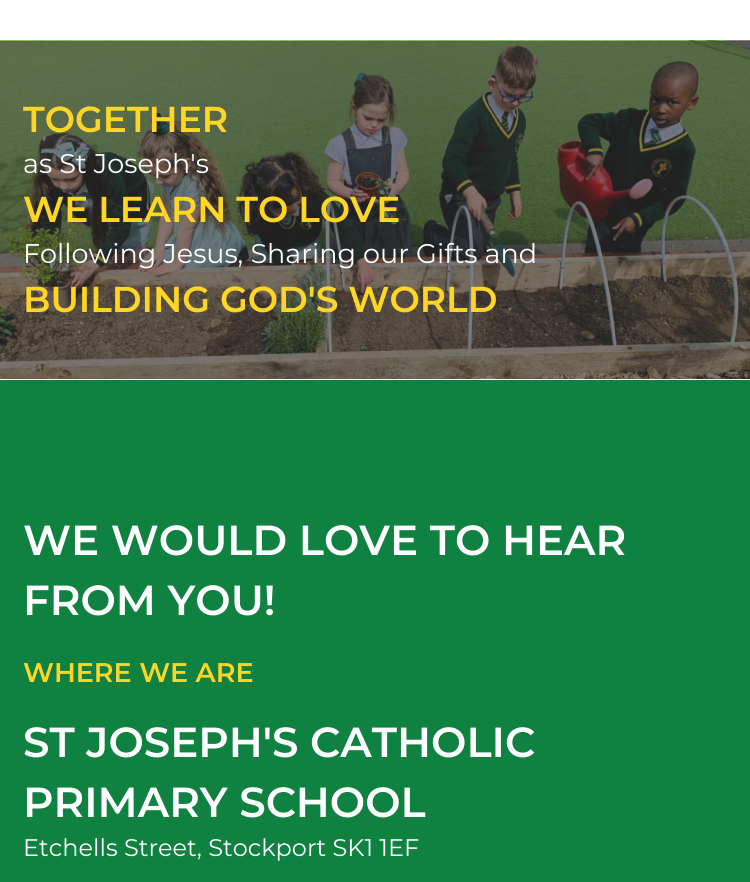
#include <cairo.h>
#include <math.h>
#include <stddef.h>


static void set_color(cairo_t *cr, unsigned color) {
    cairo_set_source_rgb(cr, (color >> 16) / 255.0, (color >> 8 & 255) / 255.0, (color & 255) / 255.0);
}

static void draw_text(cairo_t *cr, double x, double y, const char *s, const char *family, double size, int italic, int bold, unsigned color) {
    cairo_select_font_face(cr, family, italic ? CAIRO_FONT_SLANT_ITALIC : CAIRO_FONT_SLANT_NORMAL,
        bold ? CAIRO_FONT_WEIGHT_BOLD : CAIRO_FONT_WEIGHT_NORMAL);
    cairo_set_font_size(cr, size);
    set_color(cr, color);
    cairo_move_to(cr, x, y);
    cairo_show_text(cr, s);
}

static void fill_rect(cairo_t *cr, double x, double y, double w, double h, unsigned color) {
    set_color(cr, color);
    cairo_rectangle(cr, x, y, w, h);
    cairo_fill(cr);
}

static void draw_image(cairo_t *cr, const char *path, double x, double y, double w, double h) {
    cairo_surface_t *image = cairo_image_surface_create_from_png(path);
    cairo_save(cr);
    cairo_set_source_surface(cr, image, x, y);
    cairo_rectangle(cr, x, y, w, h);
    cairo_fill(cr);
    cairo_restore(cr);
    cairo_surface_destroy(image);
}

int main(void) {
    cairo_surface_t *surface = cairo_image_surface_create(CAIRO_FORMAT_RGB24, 750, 882);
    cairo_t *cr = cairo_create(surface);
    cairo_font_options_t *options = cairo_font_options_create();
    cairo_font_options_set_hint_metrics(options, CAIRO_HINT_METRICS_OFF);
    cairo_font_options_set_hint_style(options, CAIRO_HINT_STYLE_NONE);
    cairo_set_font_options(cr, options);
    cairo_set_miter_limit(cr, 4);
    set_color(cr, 0xFFFFFF);
    cairo_paint(cr);
    draw_image(cr, "assets/img1.png", 0, 40, 750, 339);
    draw_text(cr, 23, 132, "TOGETHER", "Montserrat SemiBold", 36, 0, 0, 0xFFD625);
    draw_text(cr, 23, 173, "as St Joseph's", "Montserrat", 27, 0, 0, 0xFFFFFF);
    draw_text(cr, 23, 222, "WE LEARN TO LOVE", "Montserrat SemiBold", 36, 0, 0, 0xFFD625);
    draw_text(cr, 23, 263, "Following Jesus, Sharing our Gifts and", "Montserrat", 27, 0, 0, 0xFFFFFF);
    draw_text(cr, 23, 312, "BUILDING GOD'S WORLD", "Montserrat SemiBold", 36, 0, 0, 0xFFD625);
    fill_rect(cr, 0, 380, 750, 502, 0x0F8140);
    draw_text(cr, 23, 555, "WE WOULD LOVE TO HEAR", "Montserrat SemiBold", 42, 0, 0, 0xFFFFFF);
    draw_text(cr, 23, 615, "FROM YOU!", "Montserrat SemiBold", 42, 0, 0, 0xFFFFFF);
    draw_text(cr, 23, 682, "WHERE WE ARE", "Montserrat SemiBold", 27, 0, 0, 0xFFD625);
    draw_text(cr, 23, 757, "ST JOSEPH'S CATHOLIC", "Montserrat SemiBold", 42, 0, 0, 0xFFFFFF);
    draw_text(cr, 23, 817, "PRIMARY SCHOOL", "Montserrat SemiBold", 42, 0, 0, 0xFFFFFF);
    draw_text(cr, 23, 856, "Etchells Street, Stockport SK1 1EF", "Montserrat", 24, 0, 0, 0xFFFFFF);
    cairo_surface_write_to_png(surface, "output.png");
    cairo_font_options_destroy(options);
    cairo_destroy(cr);
    cairo_surface_destroy(surface);
    return 0;
}
